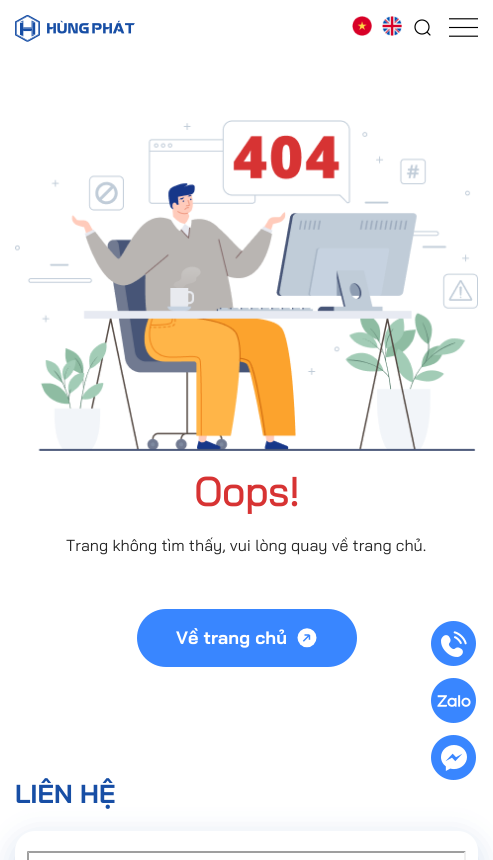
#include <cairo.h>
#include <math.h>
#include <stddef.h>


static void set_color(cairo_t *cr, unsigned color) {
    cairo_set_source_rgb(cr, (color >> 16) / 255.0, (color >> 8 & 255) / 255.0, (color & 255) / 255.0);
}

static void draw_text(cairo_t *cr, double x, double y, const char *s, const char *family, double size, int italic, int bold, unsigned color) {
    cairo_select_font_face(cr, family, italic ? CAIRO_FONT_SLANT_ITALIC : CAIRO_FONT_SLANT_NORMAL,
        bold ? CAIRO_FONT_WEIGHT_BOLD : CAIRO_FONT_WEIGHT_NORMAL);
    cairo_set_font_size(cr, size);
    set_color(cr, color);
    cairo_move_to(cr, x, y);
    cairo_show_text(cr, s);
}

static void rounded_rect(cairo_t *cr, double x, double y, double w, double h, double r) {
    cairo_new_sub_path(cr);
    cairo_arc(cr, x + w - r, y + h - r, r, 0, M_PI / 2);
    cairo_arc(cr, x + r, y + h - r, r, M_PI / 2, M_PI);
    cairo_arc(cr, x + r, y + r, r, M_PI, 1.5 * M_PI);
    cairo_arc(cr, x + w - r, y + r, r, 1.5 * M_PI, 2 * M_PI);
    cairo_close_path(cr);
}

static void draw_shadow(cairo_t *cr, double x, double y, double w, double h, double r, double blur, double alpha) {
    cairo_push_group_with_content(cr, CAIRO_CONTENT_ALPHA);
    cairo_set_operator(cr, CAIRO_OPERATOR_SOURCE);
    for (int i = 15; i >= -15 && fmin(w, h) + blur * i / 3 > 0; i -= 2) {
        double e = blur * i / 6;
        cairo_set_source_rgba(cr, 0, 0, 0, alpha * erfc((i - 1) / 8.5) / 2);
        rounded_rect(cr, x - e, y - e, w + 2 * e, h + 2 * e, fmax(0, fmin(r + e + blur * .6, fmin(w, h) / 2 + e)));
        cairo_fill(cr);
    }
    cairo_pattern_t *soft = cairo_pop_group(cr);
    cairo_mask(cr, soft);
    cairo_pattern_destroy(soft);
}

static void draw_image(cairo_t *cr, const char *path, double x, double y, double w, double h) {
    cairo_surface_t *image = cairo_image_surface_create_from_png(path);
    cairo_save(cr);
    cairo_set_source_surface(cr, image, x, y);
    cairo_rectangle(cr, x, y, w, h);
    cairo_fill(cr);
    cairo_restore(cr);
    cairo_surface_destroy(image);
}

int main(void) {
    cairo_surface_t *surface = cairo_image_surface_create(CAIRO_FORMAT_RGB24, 493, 860);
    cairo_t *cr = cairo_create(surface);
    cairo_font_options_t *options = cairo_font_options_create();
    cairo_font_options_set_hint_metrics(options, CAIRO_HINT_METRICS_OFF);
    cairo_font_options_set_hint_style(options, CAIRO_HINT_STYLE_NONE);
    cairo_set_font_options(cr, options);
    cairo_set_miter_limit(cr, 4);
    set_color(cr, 0xFFFFFF);
    cairo_paint(cr);
    draw_image(cr, "assets/img1.png", 15, 15, 120, 27);
    draw_image(cr, "assets/img2.png", 352, 16, 20, 20);
    draw_image(cr, "assets/img3.png", 382, 16, 20, 20);
    cairo_arc(cr, 422, 27, 7, 0, 2 * M_PI);
    set_color(cr, 0x000000);
    cairo_set_line_width(cr, 1.2);
    cairo_stroke(cr);
    cairo_new_path(cr);
    cairo_move_to(cr, 427.5, 32.5);
    cairo_line_to(cr, 430, 35);
    cairo_set_line_cap(cr, CAIRO_LINE_CAP_ROUND);
    cairo_stroke(cr);
    draw_image(cr, "assets/img4.png", 449, 18, 29, 19);
    draw_image(cr, "assets/img5.png", 15, 120, 463, 331);
    draw_text(cr, 194, 506, "Oops!", "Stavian", 40, 0, 1, 0xD73333);
    draw_text(cr, 66, 551, "Trang không tìm thấy, vui lòng quay về trang chủ.", "Stavian", 16, 0, 0, 0x242424);
    set_color(cr, 0x3986FF);
    rounded_rect(cr, 137, 609, 220, 58, 29);
    cairo_fill(cr);
    draw_text(cr, 176, 644, "Về trang chủ", "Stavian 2", 18, 0, 1, 0xFFFFFF);
    draw_image(cr, "assets/img6.png", 297, 628, 20, 20);
    set_color(cr, 0x3986FF);
    cairo_arc(cr, 453.5, 643.5, 22.5, 0, 2 * M_PI);
    cairo_fill(cr);
    draw_image(cr, "assets/img7.png", 441, 631, 26, 26);
    cairo_arc(cr, 453.5, 700.5, 22.5, 0, 2 * M_PI);
    cairo_fill(cr);
    draw_image(cr, "assets/img8.png", 437, 695, 34, 12);
    cairo_arc(cr, 453.5, 757.5, 22.5, 0, 2 * M_PI);
    cairo_fill(cr);
    draw_image(cr, "assets/img9.png", 441, 745, 26, 26);
    set_color(cr, 0x174EA5);
    draw_shadow(cr, 15, 839, 463, 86, 20, 15, 0.2);
    draw_text(cr, 15, 803, "LIÊN HỆ", "Stavian 2", 26, 0, 1, 0x174EA5);
    set_color(cr, 0xFFFFFF);
    rounded_rect(cr, 15, 831, 463, 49, 20);
    cairo_fill(cr);
    set_color(cr, 0x9F9F9F);
    cairo_new_path(cr);
    cairo_move_to(cr, 27, 851);
    cairo_line_to(cr, 466, 851);
    cairo_line_to(cr, 464, 853);
    cairo_line_to(cr, 29, 853);
    cairo_close_path(cr);
    cairo_fill(cr);
    set_color(cr, 0xEFEFEF);
    cairo_new_path(cr);
    cairo_move_to(cr, 466, 851);
    cairo_line_to(cr, 466, 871);
    cairo_line_to(cr, 464, 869);
    cairo_line_to(cr, 464, 853);
    cairo_close_path(cr);
    cairo_fill(cr);
    set_color(cr, 0x9F9F9F);
    cairo_new_path(cr);
    cairo_move_to(cr, 27, 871);
    cairo_line_to(cr, 27, 851);
    cairo_line_to(cr, 29, 853);
    cairo_line_to(cr, 29, 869);
    cairo_close_path(cr);
    cairo_fill(cr);
    cairo_surface_write_to_png(surface, "output.png");
    cairo_font_options_destroy(options);
    cairo_destroy(cr);
    cairo_surface_destroy(surface);
    return 0;
}
